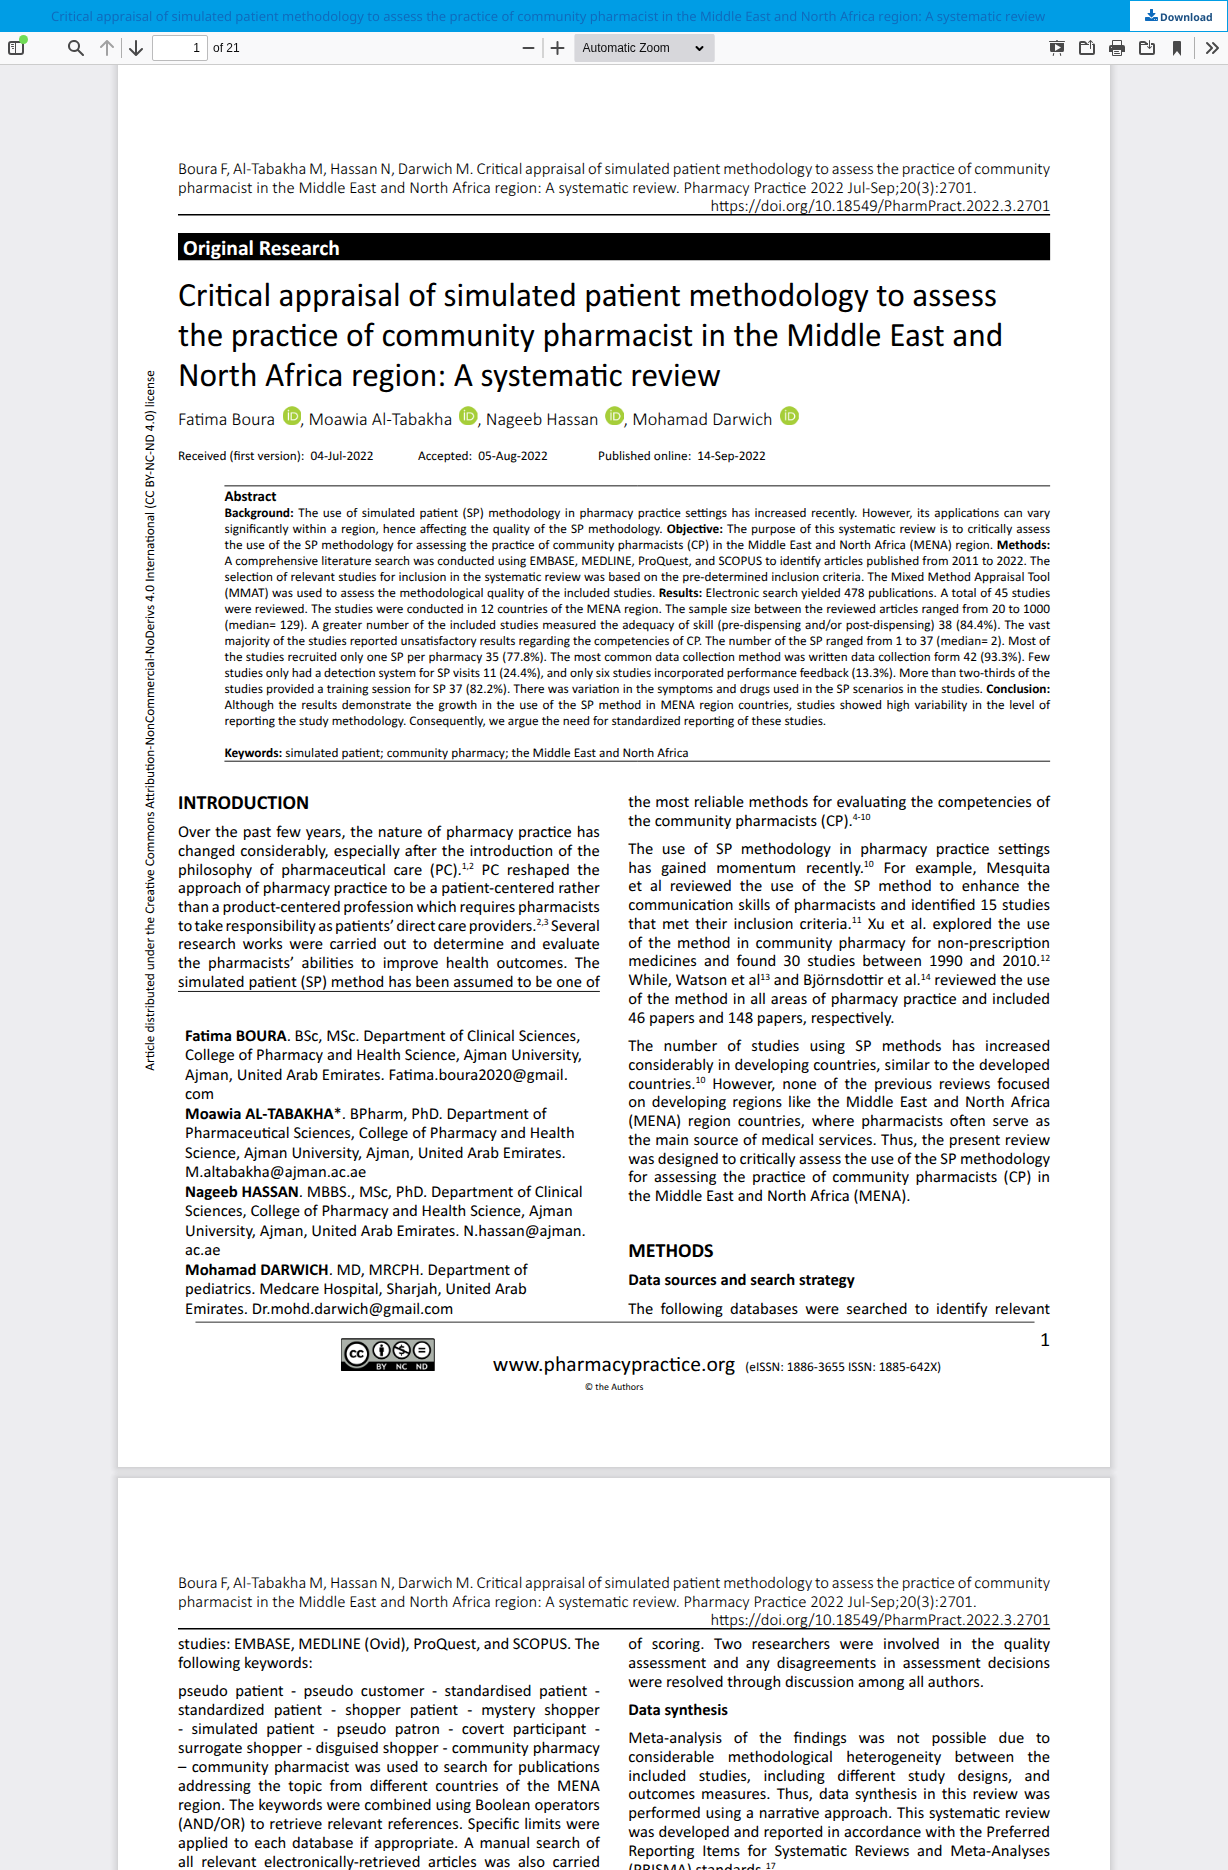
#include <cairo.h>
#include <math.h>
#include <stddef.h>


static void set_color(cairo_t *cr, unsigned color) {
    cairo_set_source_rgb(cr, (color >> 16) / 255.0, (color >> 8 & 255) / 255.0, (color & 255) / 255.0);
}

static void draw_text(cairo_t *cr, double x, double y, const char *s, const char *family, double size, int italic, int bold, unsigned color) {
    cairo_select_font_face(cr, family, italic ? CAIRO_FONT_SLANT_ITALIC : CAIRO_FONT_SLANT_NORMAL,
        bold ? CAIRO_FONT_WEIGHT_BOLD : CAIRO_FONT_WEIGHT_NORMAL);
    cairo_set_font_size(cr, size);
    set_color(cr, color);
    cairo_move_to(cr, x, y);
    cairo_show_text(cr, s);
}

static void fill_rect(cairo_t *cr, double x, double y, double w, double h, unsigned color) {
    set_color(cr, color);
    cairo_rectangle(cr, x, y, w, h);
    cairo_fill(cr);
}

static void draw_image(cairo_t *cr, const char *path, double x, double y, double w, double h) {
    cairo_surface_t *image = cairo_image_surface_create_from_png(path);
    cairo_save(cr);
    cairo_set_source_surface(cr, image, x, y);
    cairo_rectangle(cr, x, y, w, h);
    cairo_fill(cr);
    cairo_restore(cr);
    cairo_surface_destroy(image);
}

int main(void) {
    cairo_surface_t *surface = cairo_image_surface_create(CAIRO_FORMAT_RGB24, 1228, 1870);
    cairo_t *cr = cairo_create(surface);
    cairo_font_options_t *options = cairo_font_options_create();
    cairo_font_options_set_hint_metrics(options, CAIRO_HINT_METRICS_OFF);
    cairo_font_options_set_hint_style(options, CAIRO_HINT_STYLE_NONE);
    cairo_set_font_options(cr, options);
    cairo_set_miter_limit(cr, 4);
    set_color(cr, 0xFFFFFF);
    cairo_paint(cr);
    fill_rect(cr, 0, 0, 1228, 32, 0x009DE5);
    draw_text(cr, 51, 21, "Critical appraisal of simulated patient methodology to assess the practice of community pharmacist in the Middle East and North Africa region: A systematic review", "Noto Sans", 13, 0, 0, 0x0E6BBD);
    fill_rect(cr, 1130, 1, 97, 30, 0xFFFFFF);
    draw_image(cr, "assets/img1.png", 1145, 9, 13, 12);
    draw_text(cr, 1160, 21, "Download", "Noto Sans", 10.5, 0, 1, 0x1B5083);
    draw_image(cr, "assets/img2.png", 0, 32, 1228, 1838);
    cairo_surface_write_to_png(surface, "output.png");
    cairo_font_options_destroy(options);
    cairo_destroy(cr);
    cairo_surface_destroy(surface);
    return 0;
}
